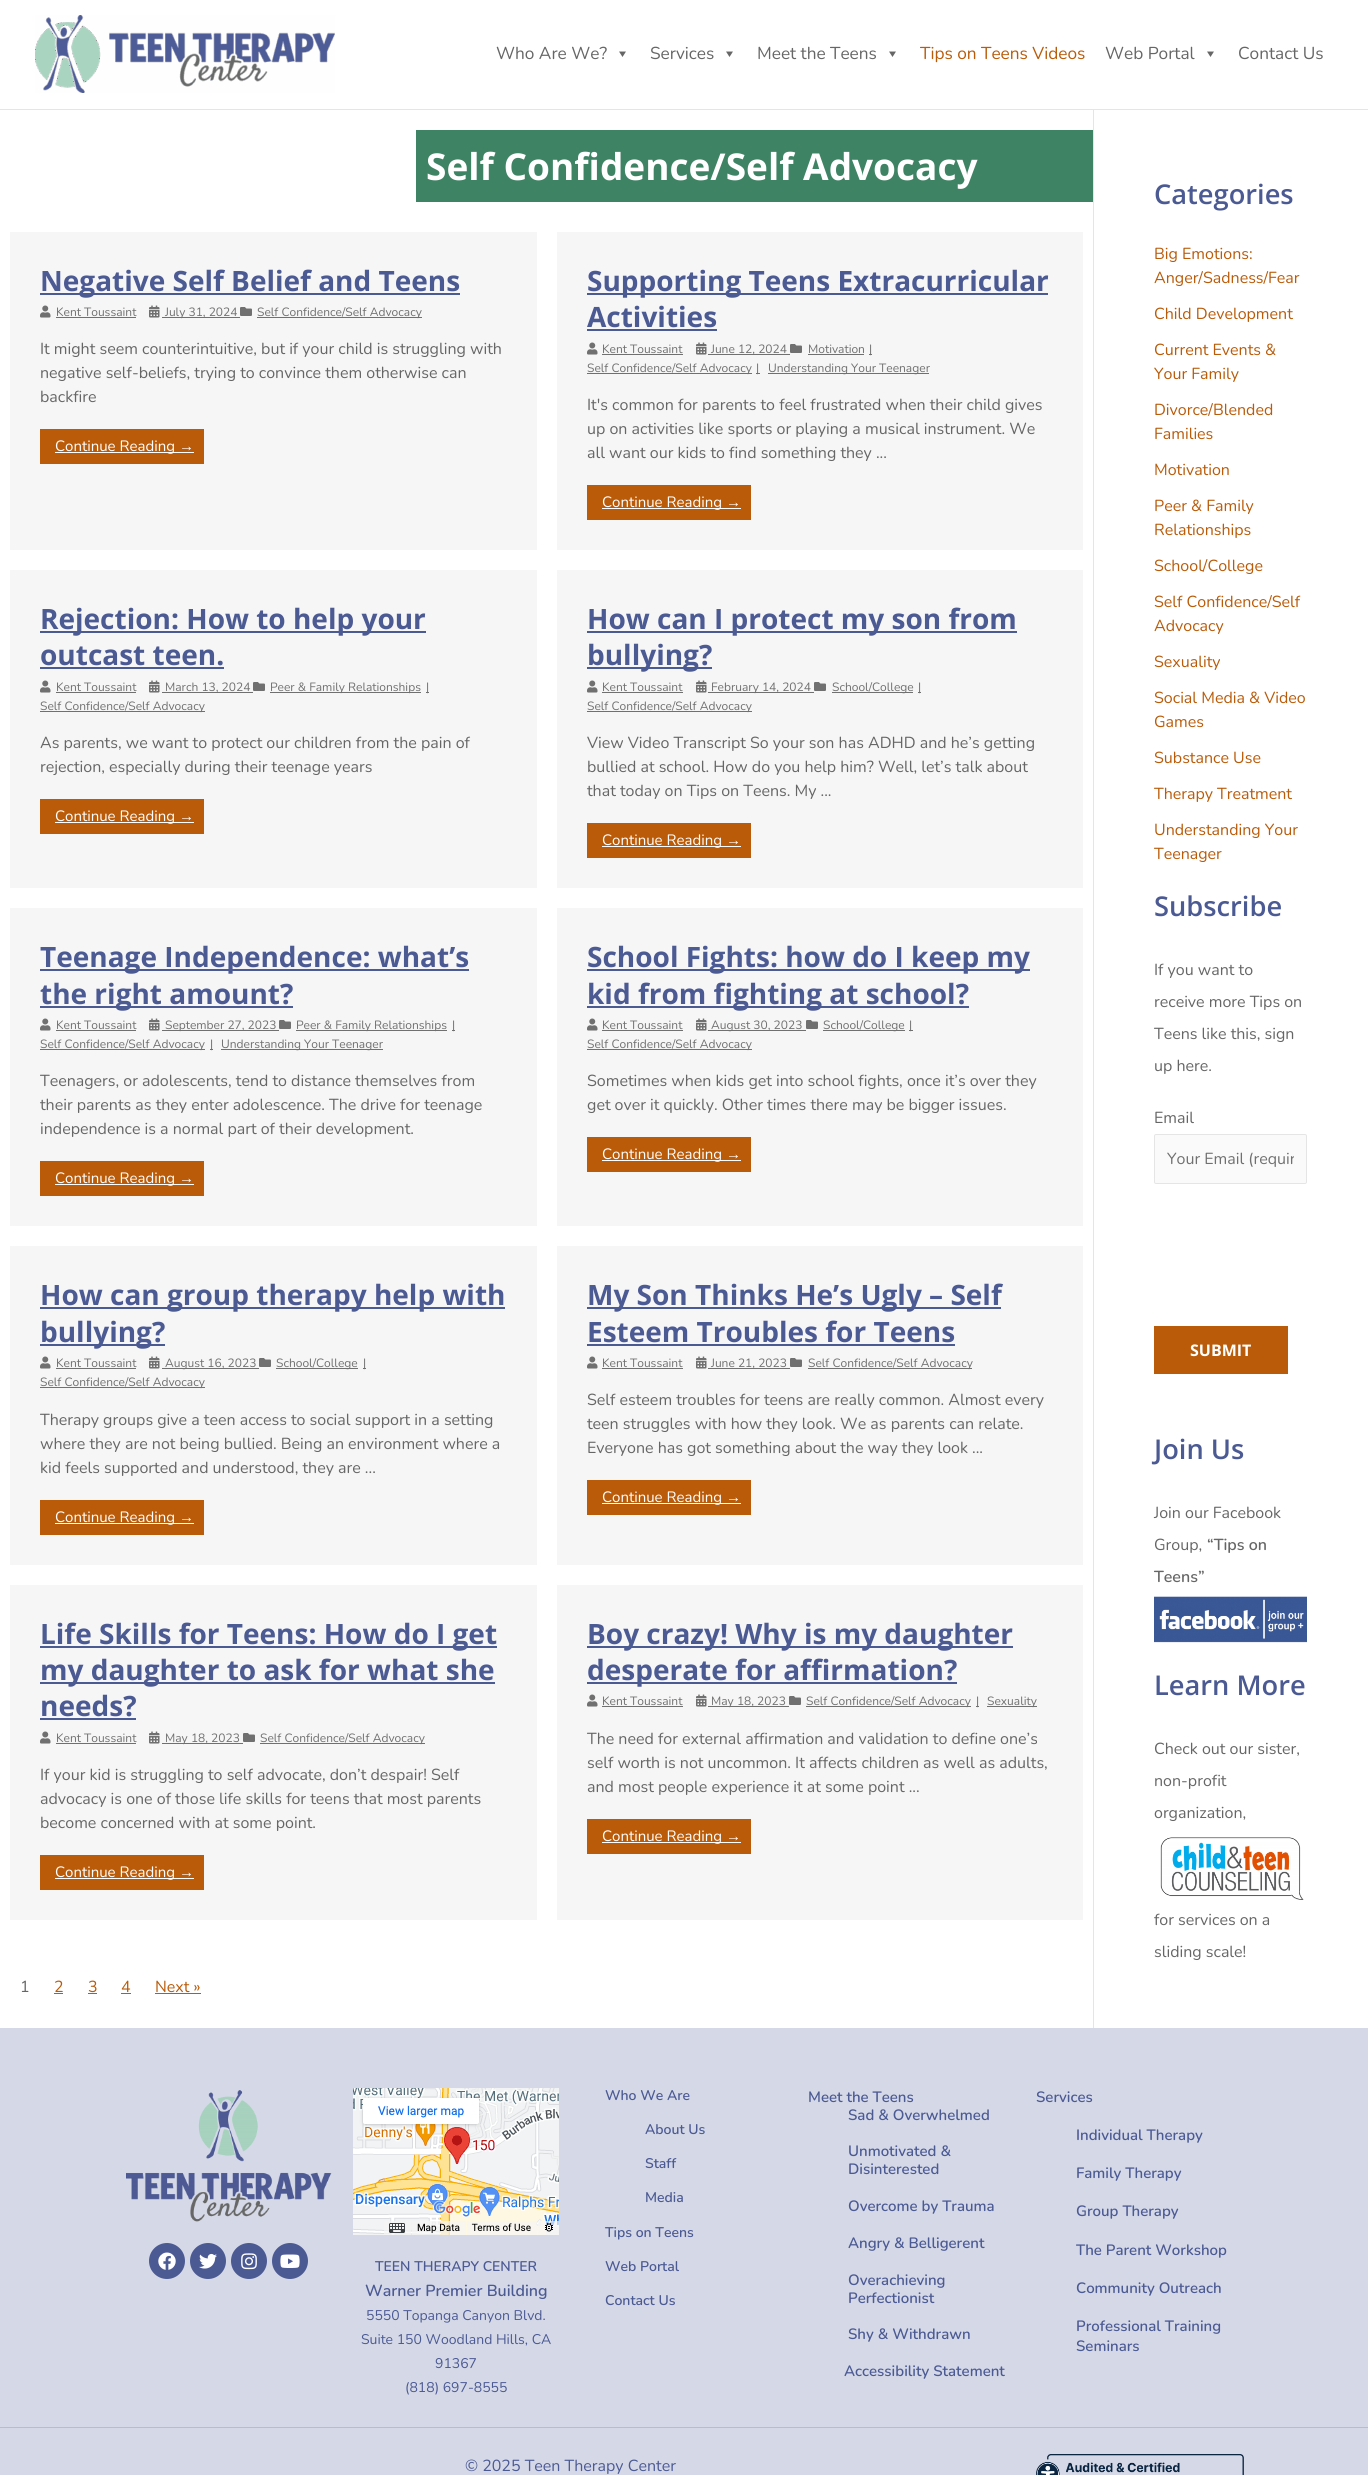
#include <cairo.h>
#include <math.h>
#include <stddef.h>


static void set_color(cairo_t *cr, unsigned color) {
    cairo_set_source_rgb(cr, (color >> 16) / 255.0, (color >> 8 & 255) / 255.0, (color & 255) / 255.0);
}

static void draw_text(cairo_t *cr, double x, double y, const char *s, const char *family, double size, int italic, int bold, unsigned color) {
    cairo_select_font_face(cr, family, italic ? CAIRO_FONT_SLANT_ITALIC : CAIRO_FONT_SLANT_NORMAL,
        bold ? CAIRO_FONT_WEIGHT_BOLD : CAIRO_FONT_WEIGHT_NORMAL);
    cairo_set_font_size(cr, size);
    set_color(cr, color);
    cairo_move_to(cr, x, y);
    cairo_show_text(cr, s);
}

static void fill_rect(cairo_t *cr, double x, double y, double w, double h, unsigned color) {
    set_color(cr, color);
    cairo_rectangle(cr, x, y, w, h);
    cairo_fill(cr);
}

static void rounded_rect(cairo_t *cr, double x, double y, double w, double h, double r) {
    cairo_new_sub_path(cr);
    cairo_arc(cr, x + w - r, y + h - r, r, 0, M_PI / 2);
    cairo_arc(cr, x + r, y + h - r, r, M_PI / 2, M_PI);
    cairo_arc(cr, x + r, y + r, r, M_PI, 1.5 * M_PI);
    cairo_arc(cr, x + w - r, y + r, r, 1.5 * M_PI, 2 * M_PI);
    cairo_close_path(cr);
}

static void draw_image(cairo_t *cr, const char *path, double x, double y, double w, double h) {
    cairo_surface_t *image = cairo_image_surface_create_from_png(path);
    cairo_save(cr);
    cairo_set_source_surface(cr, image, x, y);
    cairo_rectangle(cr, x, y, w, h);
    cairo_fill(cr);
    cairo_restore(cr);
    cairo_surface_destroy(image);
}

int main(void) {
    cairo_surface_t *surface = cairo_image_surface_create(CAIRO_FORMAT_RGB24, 1368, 2475);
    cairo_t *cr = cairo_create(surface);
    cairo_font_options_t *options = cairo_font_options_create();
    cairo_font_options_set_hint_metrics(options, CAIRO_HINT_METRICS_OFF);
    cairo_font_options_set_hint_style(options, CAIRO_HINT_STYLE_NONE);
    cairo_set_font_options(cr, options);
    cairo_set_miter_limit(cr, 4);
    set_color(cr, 0xFFFFFF);
    cairo_paint(cr);
    fill_rect(cr, 0, 109, 1368, 1, 0xE5E5E5);
    draw_image(cr, "assets/img1.png", 35, 15, 300, 78);
    draw_text(cr, 496, 59, "Who Are We?", "Nunito", 17.25, 0, 0, 0x666666);
    cairo_new_path(cr);
    cairo_move_to(cr, 626, 51.5);
    cairo_line_to(cr, 622.5, 57);
    cairo_line_to(cr, 619, 51.5);
    cairo_close_path(cr);
    cairo_fill(cr);
    draw_text(cr, 650, 59, "Services", "Nunito", 17.25, 0, 0, 0x666666);
    cairo_new_path(cr);
    cairo_move_to(cr, 733, 51.5);
    cairo_line_to(cr, 729.5, 57);
    cairo_line_to(cr, 726, 51.5);
    cairo_close_path(cr);
    cairo_fill(cr);
    draw_text(cr, 757, 59, "Meet the Teens", "Nunito", 17.25, 0, 0, 0x666666);
    cairo_new_path(cr);
    cairo_move_to(cr, 896, 51.5);
    cairo_line_to(cr, 892.5, 57);
    cairo_line_to(cr, 889, 51.5);
    cairo_close_path(cr);
    cairo_fill(cr);
    draw_text(cr, 920, 59, "Tips on Teens Videos", "Nunito", 17.25, 0, 0, 0xB95B09);
    draw_text(cr, 1105, 59, "Web Portal", "Nunito", 17.25, 0, 0, 0x666666);
    cairo_new_path(cr);
    cairo_move_to(cr, 1214, 51.5);
    cairo_line_to(cr, 1210.5, 57);
    cairo_line_to(cr, 1207, 51.5);
    cairo_close_path(cr);
    cairo_fill(cr);
    draw_text(cr, 1238, 59, "Contact Us", "Nunito", 17.25, 0, 0, 0x666666);
    fill_rect(cr, 1093, 110, 1, 1918, 0xE5E5E5);
    fill_rect(cr, 416, 130, 677, 72, 0x3F8365);
    draw_text(cr, 426, 180, "Self Confidence/Self Advocacy", "Open Sans", 37, 0, 1, 0xFFFFFF);
    fill_rect(cr, 10, 232, 527, 318, 0xF6F6F6);
    fill_rect(cr, 40, 293, 420, 2, 0x4C5A94);
    draw_text(cr, 40, 291, "Negative Self Belief and Teens", "Open Sans", 28, 0, 1, 0x4C5A94);
    draw_image(cr, "assets/img2.png", 40, 305, 11, 13);
    draw_text(cr, 56, 316, "Kent Toussaint", "Nunito", 12, 0, 0, 0x707070);
    fill_rect(cr, 56, 317, 80, 1, 0x707070);
    draw_image(cr, "assets/img3.png", 149, 305, 11, 13);
    fill_rect(cr, 162, 317, 78, 1, 0x707070);
    draw_text(cr, 165, 316, "July 31, 2024", "Nunito", 12, 0, 0, 0x707070);
    draw_image(cr, "assets/img4.png", 240, 307, 12, 9);
    fill_rect(cr, 257, 317, 165, 1, 0x707070);
    draw_text(cr, 257, 316, "Self Confidence/Self Advocacy", "Nunito", 12, 0, 0, 0x707070);
    draw_text(cr, 40, 354, "It might seem counterintuitive, but if your child is struggling with", "Nunito", 16, 0, 0, 0x666666);
    draw_text(cr, 40, 378, "negative self-beliefs, trying to convince them otherwise can", "Nunito", 16, 0, 0, 0x666666);
    draw_text(cr, 40, 402, "backfire", "Nunito", 16, 0, 0, 0x666666);
    fill_rect(cr, 40, 429, 164, 35, 0xB95B09);
    fill_rect(cr, 55, 452, 139, 1, 0xFFFFFF);
    draw_text(cr, 55, 451, "Continue Reading", "Nunito", 15, 0, 0, 0xFFFFFF);
    draw_text(cr, 179, 451, "→", "Liberation Sans", 15, 0, 0, 0xFFFFFF);
    fill_rect(cr, 557, 232, 526, 318, 0xF6F6F6);
    fill_rect(cr, 587, 293, 461, 2, 0x4C5A94);
    draw_text(cr, 587, 291, "Supporting Teens Extracurricular", "Open Sans", 28, 0, 1, 0x4C5A94);
    draw_text(cr, 587, 327, "Activities", "Open Sans", 28, 0, 1, 0x4C5A94);
    fill_rect(cr, 587, 329, 130, 2, 0x4C5A94);
    draw_image(cr, "assets/img4.png", 790, 344, 12, 9);
    draw_text(cr, 808, 353, "Motivation", "Nunito", 12, 0, 0, 0x707070);
    fill_rect(cr, 808, 354, 56, 1, 0x707070);
    fill_rect(cr, 869, 354, 3, 1, 0x707070);
    draw_text(cr, 869, 353, "|", "Nunito", 12, 0, 0, 0x707070);
    fill_rect(cr, 587, 373, 165, 1, 0x707070);
    draw_text(cr, 587, 372, "Self Confidence/Self Advocacy", "Nunito", 12, 0, 0, 0x707070);
    fill_rect(cr, 756, 373, 4, 1, 0x707070);
    draw_text(cr, 756, 372, "|", "Nunito", 12, 0, 0, 0x707070);
    fill_rect(cr, 768, 373, 161, 1, 0x707070);
    draw_text(cr, 768, 372, "Understanding Your Teenager", "Nunito", 12, 0, 0, 0x707070);
    draw_image(cr, "assets/img2.png", 587, 342, 11, 13);
    draw_text(cr, 602, 353, "Kent Toussaint", "Nunito", 12, 0, 0, 0x707070);
    fill_rect(cr, 602, 354, 81, 1, 0x707070);
    draw_image(cr, "assets/img3.png", 696, 342, 11, 13);
    fill_rect(cr, 708, 354, 82, 1, 0x707070);
    draw_text(cr, 711, 353, "June 12, 2024", "Nunito", 12, 0, 0, 0x707070);
    draw_text(cr, 587, 410, "It's common for parents to feel frustrated when their child gives", "Nunito", 16, 0, 0, 0x666666);
    draw_text(cr, 587, 434, "up on activities like sports or playing a musical instrument. We", "Nunito", 16, 0, 0, 0x666666);
    draw_text(cr, 587, 458, "all want our kids to find something they ...", "Nunito", 16, 0, 0, 0x666666);
    fill_rect(cr, 587, 485, 164, 35, 0xB95B09);
    fill_rect(cr, 602, 508, 139, 1, 0xFFFFFF);
    draw_text(cr, 602, 507, "Continue Reading", "Nunito", 15, 0, 0, 0xFFFFFF);
    draw_text(cr, 726, 507, "→", "Liberation Sans", 15, 0, 0, 0xFFFFFF);
    fill_rect(cr, 10, 570, 527, 318, 0xF6F6F6);
    fill_rect(cr, 40, 631, 386, 2, 0x4C5A94);
    draw_text(cr, 40, 629, "Rejection: How to help your", "Open Sans", 28, 0, 1, 0x4C5A94);
    draw_text(cr, 40, 665, "outcast teen.", "Open Sans", 28, 0, 1, 0x4C5A94);
    fill_rect(cr, 40, 667, 184, 2, 0x4C5A94);
    draw_image(cr, "assets/img4.png", 253, 682, 12, 9);
    fill_rect(cr, 270, 692, 151, 1, 0x707070);
    draw_text(cr, 270, 691, "Peer & Family Relationships", "Nunito", 12, 0, 0, 0x707070);
    fill_rect(cr, 426, 692, 3, 1, 0x707070);
    draw_text(cr, 426, 691, "|", "Nunito", 12, 0, 0, 0x707070);
    fill_rect(cr, 40, 711, 165, 1, 0x707070);
    draw_text(cr, 40, 710, "Self Confidence/Self Advocacy", "Nunito", 12, 0, 0, 0x707070);
    draw_image(cr, "assets/img2.png", 40, 680, 11, 13);
    draw_text(cr, 56, 691, "Kent Toussaint", "Nunito", 12, 0, 0, 0x707070);
    fill_rect(cr, 56, 692, 80, 1, 0x707070);
    draw_image(cr, "assets/img3.png", 149, 680, 11, 13);
    fill_rect(cr, 162, 692, 91, 1, 0x707070);
    draw_text(cr, 165, 691, "March 13, 2024", "Nunito", 12, 0, 0, 0x707070);
    draw_text(cr, 40, 748, "As parents, we want to protect our children from the pain of", "Nunito", 16, 0, 0, 0x666666);
    draw_text(cr, 40, 772, "rejection, especially during their teenage years", "Nunito", 16, 0, 0, 0x666666);
    fill_rect(cr, 40, 799, 164, 35, 0xB95B09);
    fill_rect(cr, 55, 822, 139, 1, 0xFFFFFF);
    draw_text(cr, 55, 821, "Continue Reading", "Nunito", 15, 0, 0, 0xFFFFFF);
    draw_text(cr, 179, 821, "→", "Liberation Sans", 15, 0, 0, 0xFFFFFF);
    fill_rect(cr, 557, 570, 526, 318, 0xF6F6F6);
    fill_rect(cr, 587, 631, 430, 2, 0x4C5A94);
    draw_text(cr, 587, 629, "How can I protect my son from", "Open Sans", 28, 0, 1, 0x4C5A94);
    fill_rect(cr, 587, 667, 125, 2, 0x4C5A94);
    draw_text(cr, 587, 665, "bullying?", "Open Sans", 28, 0, 1, 0x4C5A94);
    draw_image(cr, "assets/img4.png", 814, 682, 12, 9);
    fill_rect(cr, 832, 692, 81, 1, 0x707070);
    draw_text(cr, 832, 691, "School/College", "Nunito", 12, 0, 0, 0x707070);
    fill_rect(cr, 918, 692, 3, 1, 0x707070);
    draw_text(cr, 918, 691, "|", "Nunito", 12, 0, 0, 0x707070);
    fill_rect(cr, 587, 711, 165, 1, 0x707070);
    draw_text(cr, 587, 710, "Self Confidence/Self Advocacy", "Nunito", 12, 0, 0, 0x707070);
    draw_image(cr, "assets/img2.png", 587, 680, 11, 13);
    draw_text(cr, 602, 691, "Kent Toussaint", "Nunito", 12, 0, 0, 0x707070);
    fill_rect(cr, 602, 692, 81, 1, 0x707070);
    draw_image(cr, "assets/img3.png", 696, 680, 11, 13);
    fill_rect(cr, 708, 692, 106, 1, 0x707070);
    draw_text(cr, 711, 691, "February 14, 2024", "Nunito", 12, 0, 0, 0x707070);
    draw_text(cr, 587, 748, "View Video Transcript So your son has ADHD and he’s getting", "Nunito", 16, 0, 0, 0x666666);
    draw_text(cr, 587, 772, "bullied at school. How do you help him? Well, let’s talk about", "Nunito", 16, 0, 0, 0x666666);
    draw_text(cr, 587, 796, "that today on Tips on Teens. My ...", "Nunito", 16, 0, 0, 0x666666);
    fill_rect(cr, 587, 823, 164, 35, 0xB95B09);
    fill_rect(cr, 602, 846, 139, 1, 0xFFFFFF);
    draw_text(cr, 602, 845, "Continue Reading", "Nunito", 15, 0, 0, 0xFFFFFF);
    draw_text(cr, 726, 845, "→", "Liberation Sans", 15, 0, 0, 0xFFFFFF);
    fill_rect(cr, 10, 908, 527, 318, 0xF6F6F6);
    fill_rect(cr, 40, 969, 429, 2, 0x4C5A94);
    draw_text(cr, 40, 967, "Teenage Independence: what’s", "Open Sans", 28, 0, 1, 0x4C5A94);
    fill_rect(cr, 40, 1006, 253, 2, 0x4C5A94);
    draw_text(cr, 40, 1004, "the right amount?", "Open Sans", 28, 0, 1, 0x4C5A94);
    draw_image(cr, "assets/img4.png", 279, 1020, 12, 9);
    fill_rect(cr, 296, 1030, 151, 1, 0x707070);
    draw_text(cr, 296, 1029, "Peer & Family Relationships", "Nunito", 12, 0, 0, 0x707070);
    fill_rect(cr, 452, 1030, 3, 1, 0x707070);
    draw_text(cr, 452, 1029, "|", "Nunito", 12, 0, 0, 0x707070);
    fill_rect(cr, 40, 1049, 165, 1, 0x707070);
    draw_text(cr, 40, 1048, "Self Confidence/Self Advocacy", "Nunito", 12, 0, 0, 0x707070);
    fill_rect(cr, 210, 1049, 3, 1, 0x707070);
    draw_text(cr, 210, 1048, "|", "Nunito", 12, 0, 0, 0x707070);
    fill_rect(cr, 221, 1049, 162, 1, 0x707070);
    draw_text(cr, 221, 1048, "Understanding Your Teenager", "Nunito", 12, 0, 0, 0x707070);
    draw_image(cr, "assets/img2.png", 40, 1018, 11, 13);
    draw_text(cr, 56, 1029, "Kent Toussaint", "Nunito", 12, 0, 0, 0x707070);
    fill_rect(cr, 56, 1030, 80, 1, 0x707070);
    draw_image(cr, "assets/img3.png", 149, 1018, 11, 13);
    fill_rect(cr, 162, 1030, 117, 1, 0x707070);
    draw_text(cr, 165, 1029, "September 27, 2023", "Nunito", 12, 0, 0, 0x707070);
    draw_text(cr, 40, 1086, "Teenagers, or adolescents, tend to distance themselves from", "Nunito", 16, 0, 0, 0x666666);
    draw_text(cr, 40, 1110, "their parents as they enter adolescence. The drive for teenage", "Nunito", 16, 0, 0, 0x666666);
    draw_text(cr, 40, 1134, "independence is a normal part of their development.", "Nunito", 16, 0, 0, 0x666666);
    fill_rect(cr, 40, 1161, 164, 35, 0xB95B09);
    fill_rect(cr, 55, 1184, 139, 1, 0xFFFFFF);
    draw_text(cr, 55, 1183, "Continue Reading", "Nunito", 15, 0, 0, 0xFFFFFF);
    draw_text(cr, 179, 1183, "→", "Liberation Sans", 15, 0, 0, 0xFFFFFF);
    fill_rect(cr, 557, 908, 526, 318, 0xF6F6F6);
    fill_rect(cr, 587, 969, 443, 2, 0x4C5A94);
    draw_text(cr, 587, 967, "School Fights: how do I keep my", "Open Sans", 28, 0, 1, 0x4C5A94);
    fill_rect(cr, 587, 1006, 382, 2, 0x4C5A94);
    draw_text(cr, 587, 1004, "kid from fighting at school?", "Open Sans", 28, 0, 1, 0x4C5A94);
    draw_image(cr, "assets/img4.png", 806, 1020, 12, 9);
    fill_rect(cr, 823, 1030, 82, 1, 0x707070);
    draw_text(cr, 823, 1029, "School/College", "Nunito", 12, 0, 0, 0x707070);
    fill_rect(cr, 909, 1030, 4, 1, 0x707070);
    draw_text(cr, 909, 1029, "|", "Nunito", 12, 0, 0, 0x707070);
    fill_rect(cr, 587, 1049, 165, 1, 0x707070);
    draw_text(cr, 587, 1048, "Self Confidence/Self Advocacy", "Nunito", 12, 0, 0, 0x707070);
    draw_image(cr, "assets/img2.png", 587, 1018, 11, 13);
    draw_text(cr, 602, 1029, "Kent Toussaint", "Nunito", 12, 0, 0, 0x707070);
    fill_rect(cr, 602, 1030, 81, 1, 0x707070);
    draw_image(cr, "assets/img3.png", 696, 1018, 11, 13);
    fill_rect(cr, 708, 1030, 98, 1, 0x707070);
    draw_text(cr, 711, 1029, "August 30, 2023", "Nunito", 12, 0, 0, 0x707070);
    draw_text(cr, 587, 1086, "Sometimes when kids get into school fights, once it’s over they", "Nunito", 16, 0, 0, 0x666666);
    draw_text(cr, 587, 1110, "get over it quickly. Other times there may be bigger issues.", "Nunito", 16, 0, 0, 0x666666);
    fill_rect(cr, 587, 1137, 164, 35, 0xB95B09);
    fill_rect(cr, 602, 1160, 139, 1, 0xFFFFFF);
    draw_text(cr, 602, 1159, "Continue Reading", "Nunito", 15, 0, 0, 0xFFFFFF);
    draw_text(cr, 726, 1159, "→", "Liberation Sans", 15, 0, 0, 0xFFFFFF);
    fill_rect(cr, 10, 1246, 527, 319, 0xF6F6F6);
    fill_rect(cr, 40, 1307, 465, 2, 0x4C5A94);
    draw_text(cr, 40, 1305, "How can group therapy help with", "Open Sans", 28, 0, 1, 0x4C5A94);
    fill_rect(cr, 40, 1344, 125, 2, 0x4C5A94);
    draw_text(cr, 40, 1342, "bullying?", "Open Sans", 28, 0, 1, 0x4C5A94);
    draw_image(cr, "assets/img4.png", 259, 1358, 12, 9);
    fill_rect(cr, 276, 1368, 82, 1, 0x707070);
    draw_text(cr, 276, 1367, "School/College", "Nunito", 12, 0, 0, 0x707070);
    fill_rect(cr, 363, 1368, 3, 1, 0x707070);
    draw_text(cr, 363, 1367, "|", "Nunito", 12, 0, 0, 0x707070);
    fill_rect(cr, 40, 1387, 165, 1, 0x707070);
    draw_text(cr, 40, 1386, "Self Confidence/Self Advocacy", "Nunito", 12, 0, 0, 0x707070);
    draw_image(cr, "assets/img2.png", 40, 1356, 11, 13);
    draw_text(cr, 56, 1367, "Kent Toussaint", "Nunito", 12, 0, 0, 0x707070);
    fill_rect(cr, 56, 1368, 80, 1, 0x707070);
    draw_image(cr, "assets/img3.png", 149, 1356, 11, 13);
    fill_rect(cr, 162, 1368, 97, 1, 0x707070);
    draw_text(cr, 165, 1367, "August 16, 2023", "Nunito", 12, 0, 0, 0x707070);
    draw_text(cr, 40, 1425, "Therapy groups give a teen access to social support in a setting", "Nunito", 16, 0, 0, 0x666666);
    draw_text(cr, 40, 1449, "where they are not being bullied. Being an environment where a", "Nunito", 16, 0, 0, 0x666666);
    draw_text(cr, 40, 1473, "kid feels supported and understood, they are ...", "Nunito", 16, 0, 0, 0x666666);
    fill_rect(cr, 40, 1500, 164, 35, 0xB95B09);
    fill_rect(cr, 55, 1523, 139, 1, 0xFFFFFF);
    draw_text(cr, 55, 1522, "Continue Reading", "Nunito", 15, 0, 0, 0xFFFFFF);
    draw_text(cr, 179, 1522, "→", "Liberation Sans", 15, 0, 0, 0xFFFFFF);
    fill_rect(cr, 557, 1246, 526, 319, 0xF6F6F6);
    fill_rect(cr, 587, 1307, 414, 2, 0x4C5A94);
    draw_text(cr, 587, 1305, "My Son Thinks He’s Ugly – Self", "Open Sans", 28, 0, 1, 0x4C5A94);
    draw_text(cr, 587, 1342, "Esteem Troubles for Teens", "Open Sans", 28, 0, 1, 0x4C5A94);
    fill_rect(cr, 587, 1344, 368, 2, 0x4C5A94);
    draw_image(cr, "assets/img2.png", 587, 1356, 11, 13);
    draw_text(cr, 602, 1367, "Kent Toussaint", "Nunito", 12, 0, 0, 0x707070);
    fill_rect(cr, 602, 1368, 81, 1, 0x707070);
    draw_image(cr, "assets/img3.png", 696, 1356, 11, 13);
    fill_rect(cr, 708, 1368, 82, 1, 0x707070);
    draw_text(cr, 711, 1367, "June 21, 2023", "Nunito", 12, 0, 0, 0x707070);
    draw_image(cr, "assets/img4.png", 790, 1358, 12, 9);
    fill_rect(cr, 808, 1368, 164, 1, 0x707070);
    draw_text(cr, 808, 1367, "Self Confidence/Self Advocacy", "Nunito", 12, 0, 0, 0x707070);
    draw_text(cr, 587, 1405, "Self esteem troubles for teens are really common. Almost every", "Nunito", 16, 0, 0, 0x666666);
    draw_text(cr, 587, 1429, "teen struggles with how they look. We as parents can relate.", "Nunito", 16, 0, 0, 0x666666);
    draw_text(cr, 587, 1453, "Everyone has got something about the way they look ...", "Nunito", 16, 0, 0, 0x666666);
    fill_rect(cr, 587, 1480, 164, 35, 0xB95B09);
    fill_rect(cr, 602, 1503, 139, 1, 0xFFFFFF);
    draw_text(cr, 602, 1502, "Continue Reading", "Nunito", 15, 0, 0, 0xFFFFFF);
    draw_text(cr, 726, 1502, "→", "Liberation Sans", 15, 0, 0, 0xFFFFFF);
    fill_rect(cr, 10, 1585, 527, 335, 0xF6F6F6);
    fill_rect(cr, 40, 1646, 457, 2, 0x4C5A94);
    draw_text(cr, 40, 1644, "Life Skills for Teens: How do I get", "Open Sans", 28, 0, 1, 0x4C5A94);
    fill_rect(cr, 40, 1682, 455, 2, 0x4C5A94);
    draw_text(cr, 40, 1680, "my daughter to ask for what she", "Open Sans", 28, 0, 1, 0x4C5A94);
    draw_text(cr, 40, 1716, "needs?", "Open Sans", 28, 0, 1, 0x4C5A94);
    fill_rect(cr, 40, 1718, 96, 2, 0x4C5A94);
    draw_image(cr, "assets/img2.png", 40, 1731, 11, 13);
    draw_text(cr, 56, 1742, "Kent Toussaint", "Nunito", 12, 0, 0, 0x707070);
    fill_rect(cr, 56, 1743, 80, 1, 0x707070);
    draw_image(cr, "assets/img3.png", 149, 1731, 11, 13);
    fill_rect(cr, 162, 1743, 81, 1, 0x707070);
    draw_text(cr, 165, 1742, "May 18, 2023", "Nunito", 12, 0, 0, 0x707070);
    draw_image(cr, "assets/img4.png", 243, 1733, 12, 9);
    fill_rect(cr, 260, 1743, 165, 1, 0x707070);
    draw_text(cr, 260, 1742, "Self Confidence/Self Advocacy", "Nunito", 12, 0, 0, 0x707070);
    draw_text(cr, 40, 1780, "If your kid is struggling to self advocate, don’t despair! Self", "Nunito", 16, 0, 0, 0x666666);
    draw_text(cr, 40, 1804, "advocacy is one of those life skills for teens that most parents", "Nunito", 16, 0, 0, 0x666666);
    draw_text(cr, 40, 1828, "become concerned with at some point.", "Nunito", 16, 0, 0, 0x666666);
    fill_rect(cr, 40, 1855, 164, 35, 0xB95B09);
    fill_rect(cr, 55, 1878, 139, 1, 0xFFFFFF);
    draw_text(cr, 55, 1877, "Continue Reading", "Nunito", 15, 0, 0, 0xFFFFFF);
    draw_text(cr, 179, 1877, "→", "Liberation Sans", 15, 0, 0, 0xFFFFFF);
    fill_rect(cr, 557, 1585, 526, 335, 0xF6F6F6);
    fill_rect(cr, 587, 1646, 426, 2, 0x4C5A94);
    draw_text(cr, 587, 1644, "Boy crazy! Why is my daughter", "Open Sans", 28, 0, 1, 0x4C5A94);
    fill_rect(cr, 587, 1682, 370, 2, 0x4C5A94);
    draw_text(cr, 587, 1680, "desperate for affirmation?", "Open Sans", 28, 0, 1, 0x4C5A94);
    draw_image(cr, "assets/img2.png", 587, 1694, 11, 13);
    draw_text(cr, 602, 1705, "Kent Toussaint", "Nunito", 12, 0, 0, 0x707070);
    fill_rect(cr, 602, 1706, 81, 1, 0x707070);
    draw_image(cr, "assets/img3.png", 696, 1694, 11, 13);
    fill_rect(cr, 708, 1706, 81, 1, 0x707070);
    draw_text(cr, 711, 1705, "May 18, 2023", "Nunito", 12, 0, 0, 0x707070);
    draw_image(cr, "assets/img4.png", 789, 1696, 12, 9);
    fill_rect(cr, 806, 1706, 165, 1, 0x707070);
    draw_text(cr, 806, 1705, "Self Confidence/Self Advocacy", "Nunito", 12, 0, 0, 0x707070);
    fill_rect(cr, 976, 1706, 3, 1, 0x707070);
    draw_text(cr, 976, 1705, "|", "Nunito", 12, 0, 0, 0x707070);
    fill_rect(cr, 987, 1706, 50, 1, 0x707070);
    draw_text(cr, 987, 1705, "Sexuality", "Nunito", 12, 0, 0, 0x707070);
    draw_text(cr, 587, 1744, "The need for external affirmation and validation to define one’s", "Nunito", 16, 0, 0, 0x666666);
    draw_text(cr, 587, 1768, "self worth is not uncommon. It affects children as well as adults,", "Nunito", 16, 0, 0, 0x666666);
    draw_text(cr, 587, 1792, "and most people experience it at some point ...", "Nunito", 16, 0, 0, 0x666666);
    fill_rect(cr, 587, 1819, 164, 35, 0xB95B09);
    fill_rect(cr, 602, 1842, 139, 1, 0xFFFFFF);
    draw_text(cr, 602, 1841, "Continue Reading", "Nunito", 15, 0, 0, 0xFFFFFF);
    draw_text(cr, 726, 1841, "→", "Liberation Sans", 15, 0, 0, 0xFFFFFF);
    draw_text(cr, 20, 1992, "1", "Nunito", 16, 0, 0, 0x666666);
    draw_text(cr, 54, 1992, "2", "Nunito", 16, 0, 0, 0xB95B09);
    fill_rect(cr, 54, 1993, 9, 1, 0xB95B09);
    draw_text(cr, 88, 1992, "3", "Nunito", 16, 0, 0, 0xB95B09);
    fill_rect(cr, 88, 1993, 9, 1, 0xB95B09);
    draw_text(cr, 121, 1992, "4", "Nunito", 16, 0, 0, 0xB95B09);
    fill_rect(cr, 121, 1993, 10, 1, 0xB95B09);
    draw_text(cr, 155, 1992, "Next »", "Nunito", 16, 0, 0, 0xB95B09);
    fill_rect(cr, 155, 1993, 46, 1, 0xB95B09);
    draw_text(cr, 1154, 204, "Categories", "Open Sans SemiBold", 27.25, 0, 0, 0x4C5A94);
    draw_text(cr, 1154, 259, "Big Emotions:", "Nunito", 16, 0, 0, 0xB95B09);
    draw_text(cr, 1154, 283, "Anger/Sadness/Fear", "Nunito", 16, 0, 0, 0xB95B09);
    draw_text(cr, 1154, 319, "Child Development", "Nunito", 16, 0, 0, 0xB95B09);
    draw_text(cr, 1154, 355, "Current Events &", "Nunito", 16, 0, 0, 0xB95B09);
    draw_text(cr, 1154, 379, "Your Family", "Nunito", 16, 0, 0, 0xB95B09);
    draw_text(cr, 1154, 415, "Divorce/Blended", "Nunito", 16, 0, 0, 0xB95B09);
    draw_text(cr, 1154, 439, "Families", "Nunito", 16, 0, 0, 0xB95B09);
    draw_text(cr, 1154, 475, "Motivation", "Nunito", 16, 0, 0, 0xB95B09);
    draw_text(cr, 1154, 511, "Peer & Family", "Nunito", 16, 0, 0, 0xB95B09);
    draw_text(cr, 1154, 535, "Relationships", "Nunito", 16, 0, 0, 0xB95B09);
    draw_text(cr, 1154, 571, "School/College", "Nunito", 16, 0, 0, 0xB95B09);
    draw_text(cr, 1154, 607, "Self Confidence/Self", "Nunito", 16, 0, 0, 0xB95B09);
    draw_text(cr, 1154, 631, "Advocacy", "Nunito", 16, 0, 0, 0xB95B09);
    draw_text(cr, 1154, 667, "Sexuality", "Nunito", 16, 0, 0, 0xB95B09);
    draw_text(cr, 1154, 703, "Social Media & Video", "Nunito", 16, 0, 0, 0xB95B09);
    draw_text(cr, 1154, 727, "Games", "Nunito", 16, 0, 0, 0xB95B09);
    draw_text(cr, 1154, 763, "Substance Use", "Nunito", 16, 0, 0, 0xB95B09);
    draw_text(cr, 1154, 799, "Therapy Treatment", "Nunito", 16, 0, 0, 0xB95B09);
    draw_text(cr, 1154, 835, "Understanding Your", "Nunito", 16, 0, 0, 0xB95B09);
    draw_text(cr, 1154, 859, "Teenager", "Nunito", 16, 0, 0, 0xB95B09);
    draw_text(cr, 1154, 916, "Subscribe", "Open Sans SemiBold", 27.25, 0, 0, 0x4C5A94);
    draw_text(cr, 1154, 975, "If you want to", "Nunito", 16, 0, 0, 0x666666);
    draw_text(cr, 1154, 1007, "receive more Tips on", "Nunito", 16, 0, 0, 0x666666);
    draw_text(cr, 1154, 1039, "Teens like this, sign", "Nunito", 16, 0, 0, 0x666666);
    draw_text(cr, 1154, 1071, "up here.", "Nunito", 16, 0, 0, 0x666666);
    draw_text(cr, 1154, 1123, "Email", "Nunito", 16, 0, 0, 0x666666);
    set_color(cr, 0xFAFAFA);
    rounded_rect(cr, 1154.5, 1134.5, 152, 49, 1.5);
    cairo_fill_preserve(cr);
    set_color(cr, 0xE5E5E5);
    cairo_set_line_width(cr, 1);
    cairo_stroke(cr);
    cairo_save(cr);
    cairo_rectangle(cr, 1167, 1148, 127, 22);
    cairo_clip(cr);
    draw_text(cr, 1167, 1164, "Your Email (requir", "Nunito", 16, 0, 0, 0x707070);
    cairo_restore(cr);
    fill_rect(cr, 1154, 1326, 134, 48, 0xB95B09);
    draw_text(cr, 1190, 1356, "SUBMIT", "Open Sans", 16, 0, 1, 0xFFFFFF);
    draw_text(cr, 1154, 1459, "Join Us", "Open Sans SemiBold", 27.25, 0, 0, 0x4C5A94);
    draw_text(cr, 1154, 1518, "Join our Facebook", "Nunito", 16, 0, 0, 0x666666);
    draw_text(cr, 1154, 1550, "Group,", "Nunito", 16, 0, 0, 0x666666);
    draw_text(cr, 1207, 1550, "“Tips on", "Nunito SemiBold", 16, 0, 0, 0x666666);
    draw_text(cr, 1154, 1582, "Teens”", "Nunito SemiBold", 16, 0, 0, 0x666666);
    draw_image(cr, "assets/img5.png", 1154, 1596, 153, 47);
    draw_text(cr, 1154, 1695, "Learn More", "Open Sans SemiBold", 27.25, 0, 0, 0x4C5A94);
    draw_text(cr, 1154, 1754, "Check out our sister,", "Nunito", 16, 0, 0, 0x666666);
    draw_text(cr, 1154, 1786, "non-profit", "Nunito", 16, 0, 0, 0x666666);
    draw_text(cr, 1154, 1818, "organization,", "Nunito", 16, 0, 0, 0x666666);
    draw_image(cr, "assets/img6.png", 1160, 1837, 144, 63);
    draw_text(cr, 1154, 1925, "for services on a", "Nunito", 16, 0, 0, 0x666666);
    draw_text(cr, 1154, 1957, "sliding scale!", "Nunito", 16, 0, 0, 0x666666);
    fill_rect(cr, 0, 2028, 1368, 399, 0xD5D9E7);
    draw_image(cr, "assets/img7.png", 126, 2090, 206, 132);
    set_color(cr, 0x4C5A94);
    cairo_arc(cr, 167, 2261, 18, 0, 2 * M_PI);
    cairo_fill(cr);
    draw_image(cr, "assets/img8.png", 158, 2252, 18, 18);
    cairo_arc(cr, 208, 2261, 18, 0, 2 * M_PI);
    cairo_fill(cr);
    draw_image(cr, "assets/img9.png", 199, 2253, 18, 16);
    cairo_arc(cr, 249, 2261, 18, 0, 2 * M_PI);
    cairo_fill(cr);
    draw_image(cr, "assets/img10.png", 241, 2253, 16, 17);
    cairo_arc(cr, 290, 2261, 18, 0, 2 * M_PI);
    cairo_fill(cr);
    draw_image(cr, "assets/img11.png", 280, 2254, 20, 14);
    draw_image(cr, "assets/img12.png", 353, 2088, 206, 147);
    draw_text(cr, 375, 2271, "TEEN THERAPY CENTER", "Nunito SemiBold", 14, 0, 0, 0x4C5A94);
    draw_text(cr, 365, 2296, "Warner Premier Building", "Nunito SemiBold", 16, 0, 0, 0x4C5A94);
    draw_text(cr, 366, 2320, "5550 Topanga Canyon Blvd.", "Nunito", 14, 0, 0, 0x4C5A94);
    draw_text(cr, 361, 2344, "Suite 150 Woodland Hills, CA", "Nunito", 14, 0, 0, 0x4C5A94);
    draw_text(cr, 435, 2368, "91367", "Nunito", 14, 0, 0, 0x4C5A94);
    draw_text(cr, 405, 2392, "(818) 697-8555", "Nunito", 14, 0, 0, 0x4C5A94);
    draw_text(cr, 605, 2100, "Who We Are", "Nunito SemiBold", 14, 0, 0, 0x4C5A94);
    draw_text(cr, 645, 2134, "About Us", "Nunito SemiBold", 14, 0, 0, 0x4C5A94);
    draw_text(cr, 645, 2168, "Staff", "Nunito SemiBold", 14, 0, 0, 0x4C5A94);
    draw_text(cr, 645, 2202, "Media", "Nunito SemiBold", 14, 0, 0, 0x4C5A94);
    draw_text(cr, 605, 2237, "Tips on Teens", "Nunito SemiBold", 14, 0, 0, 0x4C5A94);
    draw_text(cr, 605, 2271, "Web Portal", "Nunito SemiBold", 14, 0, 0, 0x4C5A94);
    draw_text(cr, 605, 2305, "Contact Us", "Nunito SemiBold", 14, 0, 0, 0x4C5A94);
    draw_text(cr, 808, 2102, "Meet the Teens", "Nunito SemiBold", 15, 0, 0, 0x4C5A94);
    draw_text(cr, 848, 2120, "Sad & Overwhelmed", "Nunito SemiBold", 15, 0, 0, 0x4C5A94);
    draw_text(cr, 848, 2156, "Unmotivated &", "Nunito SemiBold", 15, 0, 0, 0x4C5A94);
    draw_text(cr, 848, 2174, "Disinterested", "Nunito SemiBold", 15, 0, 0, 0x4C5A94);
    draw_text(cr, 848, 2211, "Overcome by Trauma", "Nunito SemiBold", 15, 0, 0, 0x4C5A94);
    draw_text(cr, 848, 2248, "Angry & Belligerent", "Nunito SemiBold", 15, 0, 0, 0x4C5A94);
    draw_text(cr, 848, 2285, "Overachieving", "Nunito SemiBold", 15, 0, 0, 0x4C5A94);
    draw_text(cr, 848, 2303, "Perfectionist", "Nunito SemiBold", 15, 0, 0, 0x4C5A94);
    draw_text(cr, 848, 2339, "Shy & Withdrawn", "Nunito SemiBold", 15, 0, 0, 0x4C5A94);
    draw_text(cr, 844, 2376, "Accessibility Statement", "Nunito SemiBold", 15, 0, 0, 0x4C5A94);
    draw_text(cr, 1036, 2102, "Services", "Nunito SemiBold", 15, 0, 0, 0x4C5A94);
    draw_text(cr, 1076, 2140, "Individual Therapy", "Nunito SemiBold", 15, 0, 0, 0x4C5A94);
    draw_text(cr, 1076, 2178, "Family Therapy", "Nunito SemiBold", 15, 0, 0, 0x4C5A94);
    draw_text(cr, 1076, 2216, "Group Therapy", "Nunito SemiBold", 15, 0, 0, 0x4C5A94);
    draw_text(cr, 1076, 2255, "The Parent Workshop", "Nunito SemiBold", 15, 0, 0, 0x4C5A94);
    draw_text(cr, 1076, 2293, "Community Outreach", "Nunito SemiBold", 15, 0, 0, 0x4C5A94);
    draw_text(cr, 1076, 2331, "Professional Training", "Nunito SemiBold", 15, 0, 0, 0x4C5A94);
    draw_text(cr, 1076, 2351, "Seminars", "Nunito SemiBold", 15, 0, 0, 0x4C5A94);
    fill_rect(cr, 0, 2428, 1368, 47, 0xD5D9E7);
    fill_rect(cr, 0, 2427, 1368, 1, 0xB5BCD4);
    draw_text(cr, 465, 2471, "© 2025 Teen Therapy Center", "Nunito", 16, 0, 0, 0x4C5A94);
    draw_image(cr, "assets/img13.png", 1036, 2454, 208, 21);
    cairo_surface_write_to_png(surface, "output.png");
    cairo_font_options_destroy(options);
    cairo_destroy(cr);
    cairo_surface_destroy(surface);
    return 0;
}
